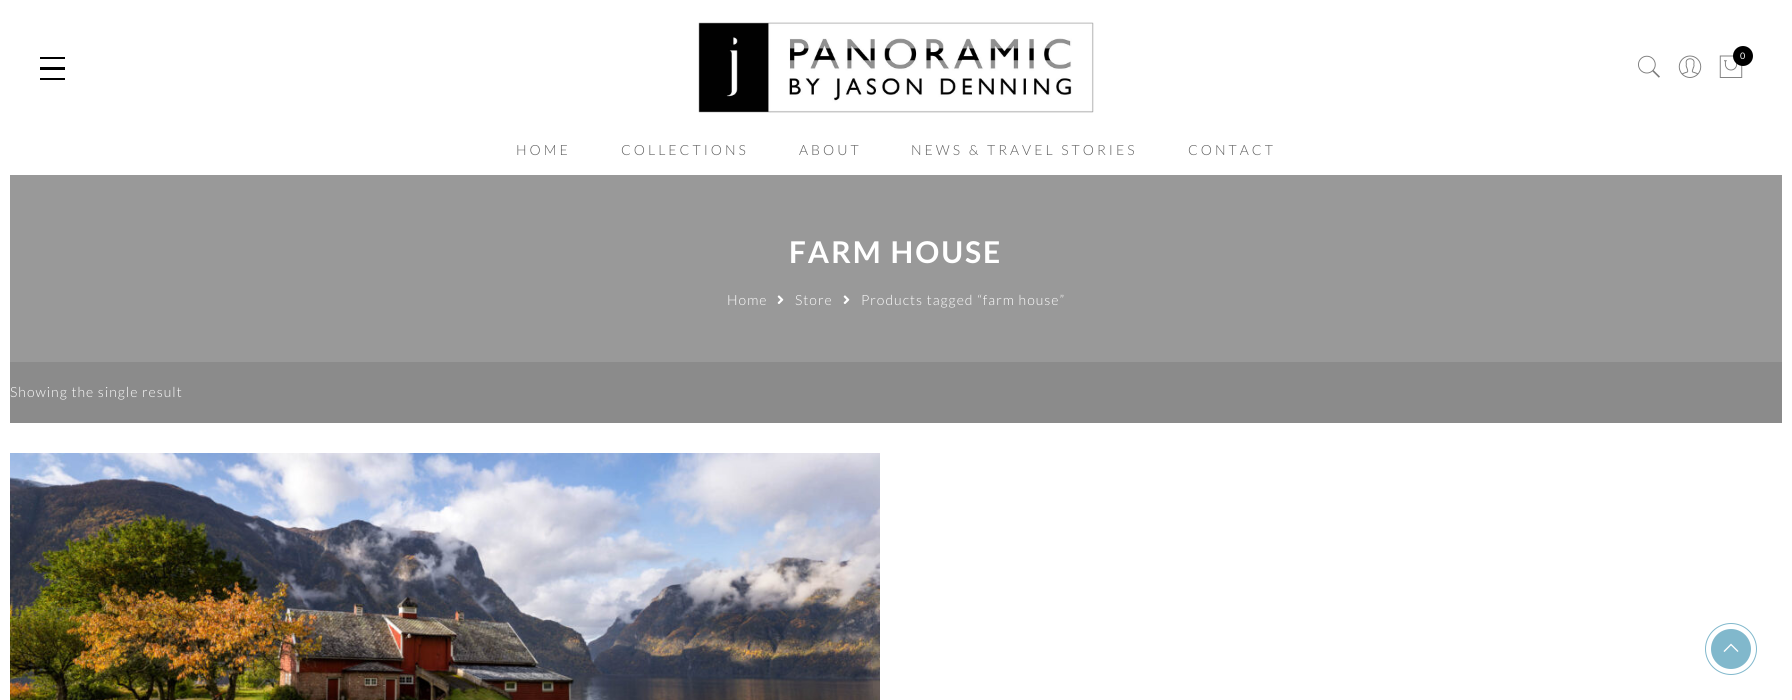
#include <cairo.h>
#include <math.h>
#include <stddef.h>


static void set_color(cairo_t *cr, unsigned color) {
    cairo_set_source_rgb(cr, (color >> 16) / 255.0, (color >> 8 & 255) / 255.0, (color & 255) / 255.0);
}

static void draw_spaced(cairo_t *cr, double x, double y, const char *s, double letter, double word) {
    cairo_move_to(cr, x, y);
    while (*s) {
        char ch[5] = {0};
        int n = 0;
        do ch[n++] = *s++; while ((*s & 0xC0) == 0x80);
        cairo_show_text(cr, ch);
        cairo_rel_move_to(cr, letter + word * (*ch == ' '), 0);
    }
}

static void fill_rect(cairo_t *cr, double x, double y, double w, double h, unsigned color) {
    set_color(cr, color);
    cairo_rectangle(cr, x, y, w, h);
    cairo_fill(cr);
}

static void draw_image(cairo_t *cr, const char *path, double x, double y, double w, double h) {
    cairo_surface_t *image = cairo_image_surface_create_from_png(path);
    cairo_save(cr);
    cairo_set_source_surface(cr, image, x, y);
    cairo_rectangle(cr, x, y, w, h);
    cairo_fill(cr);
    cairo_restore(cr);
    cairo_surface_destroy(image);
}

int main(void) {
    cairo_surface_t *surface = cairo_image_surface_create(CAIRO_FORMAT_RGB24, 1792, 700);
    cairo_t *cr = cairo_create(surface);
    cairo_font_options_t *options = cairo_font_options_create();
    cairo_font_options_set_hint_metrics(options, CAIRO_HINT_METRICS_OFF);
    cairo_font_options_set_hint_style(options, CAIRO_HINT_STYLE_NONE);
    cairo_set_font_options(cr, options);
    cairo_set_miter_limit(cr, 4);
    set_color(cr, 0xFFFFFF);
    cairo_paint(cr);
    draw_image(cr, "assets/img1.png", 698, 22, 396, 91);
    draw_image(cr, "assets/img2.png", 1638, 55, 22, 23);
    draw_image(cr, "assets/img3.png", 1678, 55, 24, 23);
    draw_image(cr, "assets/img4.png", 1719, 55, 24, 23);
    set_color(cr, 0x000000);
    cairo_arc(cr, 1743, 56, 10, 0, 2 * M_PI);
    cairo_fill(cr);
    cairo_select_font_face(cr, "Lato", CAIRO_FONT_SLANT_NORMAL, CAIRO_FONT_WEIGHT_NORMAL);
    cairo_set_font_size(cr, 9);
    set_color(cr, 0xFFFFFF);
    draw_spaced(cr, 1740, 59, "0", 1, 0);
    fill_rect(cr, 40, 57, 25, 2, 0x000000);
    fill_rect(cr, 40, 67, 25, 3, 0x000000);
    fill_rect(cr, 40, 78, 25, 2, 0x000000);
    cairo_select_font_face(cr, "Lato Light", CAIRO_FONT_SLANT_NORMAL, CAIRO_FONT_WEIGHT_NORMAL);
    cairo_set_font_size(cr, 14);
    set_color(cr, 0x5B5B5B);
    draw_spaced(cr, 516, 155, "HOME", 3, 0);
    draw_spaced(cr, 621, 155, "COLLECTIONS", 3, 0);
    draw_spaced(cr, 799, 155, "ABOUT", 3, 0);
    draw_spaced(cr, 911, 155, "NEWS & TRAVEL STORIES", 3, 0);
    draw_spaced(cr, 1188, 155, "CONTACT", 3, 0);
    fill_rect(cr, 10, 175, 1772, 187, 0x999999);
    cairo_select_font_face(cr, "Lato", CAIRO_FONT_SLANT_NORMAL, CAIRO_FONT_WEIGHT_BOLD);
    cairo_set_font_size(cr, 30);
    set_color(cr, 0xFFFFFF);
    draw_spaced(cr, 789, 263, "FARM HOUSE", 2, 0);
    cairo_select_font_face(cr, "Lato Light", CAIRO_FONT_SLANT_NORMAL, CAIRO_FONT_WEIGHT_NORMAL);
    cairo_set_font_size(cr, 14);
    draw_spaced(cr, 727, 305, "Home", 1, 0);
    draw_image(cr, "assets/img5.png", 777, 295, 7, 9);
    draw_spaced(cr, 795, 305, "Store", 1, 0);
    draw_image(cr, "assets/img5.png", 843, 295, 7, 9);
    draw_spaced(cr, 861, 305, "Products tagged “farm house”", 1, 0);
    fill_rect(cr, 10, 362, 1772, 61, 0x8B8B8B);
    set_color(cr, 0xFFFFFF);
    draw_spaced(cr, 10, 397, "Showing the single result", 1, 0);
    draw_image(cr, "assets/img6.png", 10, 453, 870, 247);
    cairo_arc(cr, 1731, 649, 25.5, 0, 2 * M_PI);
    set_color(cr, 0x81B8CC);
    cairo_set_line_width(cr, 1);
    cairo_stroke(cr);
    cairo_arc(cr, 1731, 649, 20, 0, 2 * M_PI);
    cairo_fill(cr);
    draw_image(cr, "assets/img7.png", 1723, 643, 16, 9);
    cairo_surface_write_to_png(surface, "output.png");
    cairo_font_options_destroy(options);
    cairo_destroy(cr);
    cairo_surface_destroy(surface);
    return 0;
}
